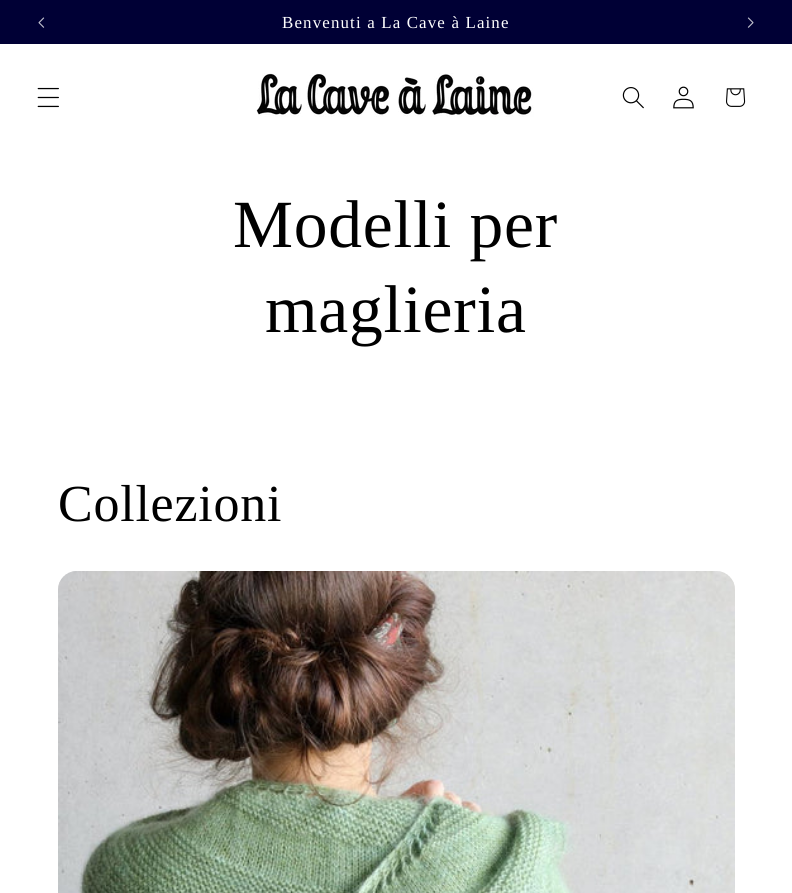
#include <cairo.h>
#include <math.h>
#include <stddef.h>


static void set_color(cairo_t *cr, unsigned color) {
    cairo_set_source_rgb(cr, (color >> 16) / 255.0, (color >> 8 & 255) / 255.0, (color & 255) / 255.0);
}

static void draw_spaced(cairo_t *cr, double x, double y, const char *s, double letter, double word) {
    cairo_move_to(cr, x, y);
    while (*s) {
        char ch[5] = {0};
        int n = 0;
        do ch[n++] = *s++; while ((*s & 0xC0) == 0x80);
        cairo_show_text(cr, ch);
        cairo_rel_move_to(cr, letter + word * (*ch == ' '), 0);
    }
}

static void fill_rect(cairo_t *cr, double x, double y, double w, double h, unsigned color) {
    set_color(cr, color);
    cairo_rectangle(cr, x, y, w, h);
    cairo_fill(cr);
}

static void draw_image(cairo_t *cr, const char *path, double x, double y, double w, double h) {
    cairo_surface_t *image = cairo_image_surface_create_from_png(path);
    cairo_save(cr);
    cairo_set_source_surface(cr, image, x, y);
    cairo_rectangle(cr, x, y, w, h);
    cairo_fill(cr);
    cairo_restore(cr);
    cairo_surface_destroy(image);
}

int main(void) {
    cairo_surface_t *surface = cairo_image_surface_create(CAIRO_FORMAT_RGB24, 792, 893);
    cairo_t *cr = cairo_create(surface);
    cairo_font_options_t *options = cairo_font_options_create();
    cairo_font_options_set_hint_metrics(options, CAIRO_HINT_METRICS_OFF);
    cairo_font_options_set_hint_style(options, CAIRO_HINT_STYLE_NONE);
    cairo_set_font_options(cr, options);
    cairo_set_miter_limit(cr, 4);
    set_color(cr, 0xFFFFFF);
    cairo_paint(cr);
    fill_rect(cr, 0, 0, 792, 44, 0x000035);
    draw_image(cr, "assets/img1.png", 38, 17, 7, 11);
    cairo_select_font_face(cr, "Liberation Serif", CAIRO_FONT_SLANT_NORMAL, CAIRO_FONT_WEIGHT_NORMAL);
    cairo_set_font_size(cr, 16.9);
    set_color(cr, 0xFFFFFF);
    draw_spaced(cr, 282, 28, "Benvenuti a La Cave à Laine", 1.15, 0);
    draw_image(cr, "assets/img2.png", 747, 17, 7, 11);
    draw_image(cr, "assets/img3.png", 37, 87, 22, 21);
    draw_image(cr, "assets/img4.png", 256, 73, 278, 44);
    draw_image(cr, "assets/img5.png", 622, 87, 22, 22);
    draw_image(cr, "assets/img6.png", 673, 86, 21, 23);
    draw_image(cr, "assets/img7.png", 726, 88, 20, 19);
    cairo_set_font_size(cr, 67.5);
    set_color(cr, 0x000000);
    draw_spaced(cr, 233, 247, "Modelli per", 0.75, 0);
    draw_spaced(cr, 265, 332, "maglieria", 0.75, 0);
    cairo_set_font_size(cr, 52);
    draw_spaced(cr, 58, 521, "Collezioni", 0.75, 0);
    draw_image(cr, "assets/img8.png", 58, 571, 677, 322);
    cairo_surface_write_to_png(surface, "output.png");
    cairo_font_options_destroy(options);
    cairo_destroy(cr);
    cairo_surface_destroy(surface);
    return 0;
}
